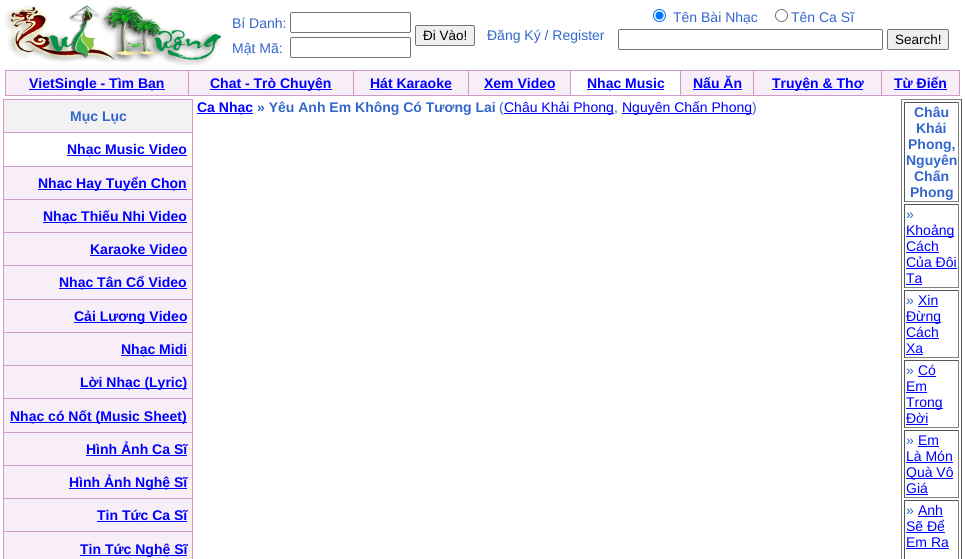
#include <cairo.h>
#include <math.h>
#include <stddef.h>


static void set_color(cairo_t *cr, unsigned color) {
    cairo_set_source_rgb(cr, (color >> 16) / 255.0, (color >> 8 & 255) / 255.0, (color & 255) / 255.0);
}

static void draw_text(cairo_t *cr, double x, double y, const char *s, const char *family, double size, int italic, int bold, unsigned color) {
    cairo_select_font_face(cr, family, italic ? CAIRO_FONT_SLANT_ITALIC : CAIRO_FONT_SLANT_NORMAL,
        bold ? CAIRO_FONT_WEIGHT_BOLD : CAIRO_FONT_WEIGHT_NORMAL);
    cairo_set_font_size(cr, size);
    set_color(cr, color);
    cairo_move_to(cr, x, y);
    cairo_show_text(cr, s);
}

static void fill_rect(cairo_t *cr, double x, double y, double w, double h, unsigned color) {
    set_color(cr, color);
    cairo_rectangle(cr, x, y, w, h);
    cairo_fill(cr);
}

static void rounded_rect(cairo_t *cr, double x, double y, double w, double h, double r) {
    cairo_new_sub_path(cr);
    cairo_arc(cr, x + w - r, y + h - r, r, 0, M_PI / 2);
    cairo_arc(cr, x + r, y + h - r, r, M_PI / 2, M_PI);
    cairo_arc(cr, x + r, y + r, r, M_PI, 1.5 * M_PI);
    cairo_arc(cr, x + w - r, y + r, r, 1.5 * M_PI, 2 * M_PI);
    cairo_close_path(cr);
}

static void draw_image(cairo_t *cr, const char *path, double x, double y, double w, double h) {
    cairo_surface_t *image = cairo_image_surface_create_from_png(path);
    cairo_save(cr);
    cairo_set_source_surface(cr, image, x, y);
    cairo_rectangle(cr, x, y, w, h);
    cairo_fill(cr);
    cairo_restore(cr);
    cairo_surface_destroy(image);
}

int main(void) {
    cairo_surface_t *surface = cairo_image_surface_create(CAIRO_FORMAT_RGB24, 965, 559);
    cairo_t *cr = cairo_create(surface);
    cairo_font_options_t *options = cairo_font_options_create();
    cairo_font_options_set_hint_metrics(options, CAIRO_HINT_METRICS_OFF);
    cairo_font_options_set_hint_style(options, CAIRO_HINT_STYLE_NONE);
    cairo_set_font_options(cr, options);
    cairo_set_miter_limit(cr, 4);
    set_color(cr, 0xFFFFFF);
    cairo_paint(cr);
    draw_image(cr, "assets/img1.png", 4, 5, 217, 60);
    draw_text(cr, 232, 28, "Bí Danh:", "Liberation Sans", 14, 0, 0, 0x3366CC);
    rounded_rect(cr, 290.5, 12.5, 120, 20, 1.5);
    set_color(cr, 0x767676);
    cairo_set_line_width(cr, 1);
    cairo_stroke(cr);
    set_color(cr, 0xEFEFEF);
    rounded_rect(cr, 415.5, 25.5, 59, 20, 1.5);
    cairo_fill_preserve(cr);
    set_color(cr, 0x767676);
    cairo_stroke(cr);
    draw_text(cr, 423, 40, "Đi Vào!", "Liberation Sans", 13.5, 0, 0, 0x000000);
    draw_text(cr, 232, 53, "Mật Mã:", "Liberation Sans", 14, 0, 0, 0x3366CC);
    rounded_rect(cr, 290.5, 37.5, 120, 20, 1.5);
    set_color(cr, 0x767676);
    cairo_stroke(cr);
    draw_text(cr, 487, 40, "Đăng Ký / Register", "Liberation Sans", 14, 0, 0, 0x3366CC);
    cairo_new_path(cr);
    cairo_arc(cr, 659.5, 15.5, 6, 0, 2 * M_PI);
    set_color(cr, 0x0075FF);
    cairo_stroke(cr);
    cairo_arc(cr, 659.5, 15.5, 4, 0, 2 * M_PI);
    cairo_fill(cr);
    draw_text(cr, 673, 22, "Tên Bài Nhạc", "Liberation Sans", 14, 0, 0, 0x3366CC);
    cairo_new_path(cr);
    cairo_arc(cr, 781.5, 15.5, 6, 0, 2 * M_PI);
    set_color(cr, 0x767676);
    cairo_stroke(cr);
    draw_text(cr, 791, 22, "Tên Ca Sĩ", "Liberation Sans", 14, 0, 0, 0x3366CC);
    rounded_rect(cr, 618.5, 29.5, 264, 20, 1.5);
    set_color(cr, 0x767676);
    cairo_stroke(cr);
    set_color(cr, 0xEFEFEF);
    rounded_rect(cr, 887.5, 29.5, 61, 20, 1.5);
    cairo_fill_preserve(cr);
    set_color(cr, 0x767676);
    cairo_stroke(cr);
    draw_text(cr, 895, 44, "Search!", "Liberation Sans", 13.5, 0, 0, 0x000000);
    fill_rect(cr, 5, 70, 955, 26, 0xD29AC8);
    fill_rect(cr, 6, 71, 182, 24, 0xF7EEF7);
    fill_rect(cr, 29, 89, 136, 1, 0x0000FF);
    draw_text(cr, 29, 88, "VietSingle - Tìm Bạn", "Liberation Sans", 14, 0, 1, 0x0000FF);
    fill_rect(cr, 189, 71, 164, 24, 0xF7EEF7);
    fill_rect(cr, 210, 89, 122, 1, 0x0000FF);
    draw_text(cr, 210, 88, "Chat - Trò Chuyện", "Liberation Sans", 14, 0, 1, 0x0000FF);
    fill_rect(cr, 354, 71, 114, 24, 0xF7EEF7);
    draw_text(cr, 370, 88, "Hát Karaoke", "Liberation Sans", 14, 0, 1, 0x0000FF);
    fill_rect(cr, 370, 89, 82, 1, 0x0000FF);
    fill_rect(cr, 469, 71, 101, 24, 0xF7EEF7);
    draw_text(cr, 484, 88, "Xem Video", "Liberation Sans", 14, 0, 1, 0x0000FF);
    fill_rect(cr, 484, 89, 71, 1, 0x0000FF);
    fill_rect(cr, 571, 71, 109, 24, 0xFFFFFF);
    fill_rect(cr, 587, 89, 77, 1, 0x0000FF);
    draw_text(cr, 587, 88, "Nhạc Music", "Liberation Sans", 14, 0, 1, 0x0000FF);
    fill_rect(cr, 681, 71, 72, 24, 0xF7EEF7);
    draw_text(cr, 693, 88, "Nấu Ăn", "Liberation Sans", 14, 0, 1, 0x0000FF);
    fill_rect(cr, 693, 89, 49, 1, 0x0000FF);
    fill_rect(cr, 754, 71, 127, 24, 0xF7EEF7);
    fill_rect(cr, 772, 89, 91, 1, 0x0000FF);
    draw_text(cr, 772, 88, "Truyện & Thơ", "Liberation Sans", 14, 0, 1, 0x0000FF);
    fill_rect(cr, 882, 71, 77, 24, 0xF7EEF7);
    draw_text(cr, 894, 88, "Từ Điển", "Liberation Sans", 14, 0, 1, 0x0000FF);
    fill_rect(cr, 894, 89, 53, 1, 0x0000FF);
    fill_rect(cr, 3, 99, 190, 460, 0xD29AC8);
    fill_rect(cr, 4, 100, 188, 32, 0xF2F2F2);
    draw_text(cr, 70, 121, "Mục Lục", "Liberation Sans", 14, 0, 1, 0x3366CC);
    fill_rect(cr, 4, 133, 188, 33, 0xFFFFFF);
    fill_rect(cr, 67, 155, 120, 1, 0x0000FF);
    draw_text(cr, 67, 154, "Nhạc Music Video", "Liberation Sans", 14, 0, 1, 0x0000FF);
    fill_rect(cr, 4, 167, 188, 32, 0xF7EEF7);
    fill_rect(cr, 38, 189, 149, 1, 0x0000FF);
    draw_text(cr, 38, 188, "Nhạc Hay Tuyển Chọn", "Liberation Sans", 14, 0, 1, 0x0000FF);
    fill_rect(cr, 4, 200, 188, 32, 0xF7EEF7);
    fill_rect(cr, 43, 222, 144, 1, 0x0000FF);
    draw_text(cr, 43, 221, "Nhạc Thiếu Nhi Video", "Liberation Sans", 14, 0, 1, 0x0000FF);
    fill_rect(cr, 4, 233, 188, 32, 0xF7EEF7);
    draw_text(cr, 90, 254, "Karaoke Video", "Liberation Sans", 14, 0, 1, 0x0000FF);
    fill_rect(cr, 90, 255, 97, 1, 0x0000FF);
    fill_rect(cr, 4, 266, 188, 33, 0xF7EEF7);
    fill_rect(cr, 59, 288, 128, 1, 0x0000FF);
    draw_text(cr, 59, 287, "Nhạc Tân Cổ Video", "Liberation Sans", 14, 0, 1, 0x0000FF);
    fill_rect(cr, 4, 300, 188, 32, 0xF7EEF7);
    fill_rect(cr, 74, 322, 113, 1, 0x0000FF);
    draw_text(cr, 74, 321, "Cải Lương Video", "Liberation Sans", 14, 0, 1, 0x0000FF);
    fill_rect(cr, 4, 333, 188, 32, 0xF7EEF7);
    fill_rect(cr, 121, 355, 66, 1, 0x0000FF);
    draw_text(cr, 121, 354, "Nhạc Midi", "Liberation Sans", 14, 0, 1, 0x0000FF);
    fill_rect(cr, 4, 366, 188, 32, 0xF7EEF7);
    fill_rect(cr, 80, 388, 107, 1, 0x0000FF);
    draw_text(cr, 80, 387, "Lời Nhạc (Lyric)", "Liberation Sans", 14, 0, 1, 0x0000FF);
    fill_rect(cr, 4, 399, 188, 33, 0xF7EEF7);
    fill_rect(cr, 10, 422, 177, 1, 0x0000FF);
    draw_text(cr, 10, 421, "Nhạc có Nốt (Music Sheet)", "Liberation Sans", 14, 0, 1, 0x0000FF);
    fill_rect(cr, 4, 433, 188, 32, 0xF7EEF7);
    draw_text(cr, 86, 454, "Hình Ảnh Ca Sĩ", "Liberation Sans", 14, 0, 1, 0x0000FF);
    fill_rect(cr, 86, 455, 101, 1, 0x0000FF);
    fill_rect(cr, 4, 466, 188, 32, 0xF7EEF7);
    fill_rect(cr, 69, 488, 118, 1, 0x0000FF);
    draw_text(cr, 69, 487, "Hình Ảnh Nghệ Sĩ", "Liberation Sans", 14, 0, 1, 0x0000FF);
    fill_rect(cr, 4, 499, 188, 32, 0xF7EEF7);
    draw_text(cr, 97, 520, "Tin Tức Ca Sĩ", "Liberation Sans", 14, 0, 1, 0x0000FF);
    fill_rect(cr, 97, 521, 90, 1, 0x0000FF);
    fill_rect(cr, 4, 532, 188, 27, 0xF7EEF7);
    fill_rect(cr, 80, 555, 107, 1, 0x0000FF);
    draw_text(cr, 80, 554, "Tin Tức Nghệ Sĩ", "Liberation Sans", 14, 0, 1, 0x0000FF);
    fill_rect(cr, 197, 113, 56, 1, 0x0000FF);
    draw_text(cr, 197, 112, "Ca Nhạc", "Liberation Sans", 14, 0, 1, 0x0000FF);
    draw_text(cr, 257, 112, "» Yêu Anh Em Không Có Tương Lai", "Liberation Sans", 14, 0, 1, 0x3366CC);
    draw_text(cr, 499, 112, "(", "Liberation Sans", 14, 0, 0, 0x3366CC);
    fill_rect(cr, 504, 113, 110, 1, 0x0000FF);
    draw_text(cr, 504, 112, "Châu Khải Phong", "Liberation Sans", 14, 0, 0, 0x0000FF);
    draw_text(cr, 614, 112, ",", "Liberation Sans", 14, 0, 0, 0x3366CC);
    fill_rect(cr, 622, 113, 130, 1, 0x0000FF);
    draw_text(cr, 622, 112, "Nguyên Chấn Phong", "Liberation Sans", 14, 0, 0, 0x0000FF);
    draw_text(cr, 752, 112, ")", "Liberation Sans", 14, 0, 0, 0x3366CC);
    fill_rect(cr, 901, 99, 61, 1, 0x808080);
    fill_rect(cr, 961, 99, 1, 460, 0x555555);
    fill_rect(cr, 901, 99, 1, 460, 0x808080);
    fill_rect(cr, 904, 102, 55, 1, 0x555555);
    fill_rect(cr, 958, 102, 1, 100, 0x808080);
    fill_rect(cr, 904, 201, 55, 1, 0x808080);
    fill_rect(cr, 904, 102, 1, 100, 0x555555);
    draw_text(cr, 914, 117, "Châu", "Liberation Sans", 14, 0, 1, 0x3366CC);
    draw_text(cr, 916, 133, "Khải", "Liberation Sans", 14, 0, 1, 0x3366CC);
    draw_text(cr, 908, 149, "Phong,", "Liberation Sans", 14, 0, 1, 0x3366CC);
    draw_text(cr, 906, 165, "Nguyên", "Liberation Sans", 14, 0, 1, 0x3366CC);
    draw_text(cr, 914, 181, "Chấn", "Liberation Sans", 14, 0, 1, 0x3366CC);
    draw_text(cr, 910, 197, "Phong", "Liberation Sans", 14, 0, 1, 0x3366CC);
    fill_rect(cr, 904, 204, 55, 1, 0x555555);
    fill_rect(cr, 958, 204, 1, 84, 0x808080);
    fill_rect(cr, 904, 287, 55, 1, 0x808080);
    fill_rect(cr, 904, 204, 1, 84, 0x555555);
    draw_text(cr, 906, 219, "»", "Liberation Sans", 14, 0, 0, 0x3366CC);
    fill_rect(cr, 906, 236, 48, 1, 0x0000FF);
    draw_text(cr, 906, 235, "Khoảng", "Liberation Sans", 14, 0, 0, 0x0000FF);
    draw_text(cr, 906, 251, "Cách", "Liberation Sans", 14, 0, 0, 0x0000FF);
    fill_rect(cr, 906, 252, 33, 1, 0x0000FF);
    draw_text(cr, 906, 267, "Của Đôi", "Liberation Sans", 14, 0, 0, 0x0000FF);
    fill_rect(cr, 906, 268, 51, 1, 0x0000FF);
    draw_text(cr, 906, 283, "Ta", "Liberation Sans", 14, 0, 0, 0x0000FF);
    fill_rect(cr, 906, 284, 16, 1, 0x0000FF);
    fill_rect(cr, 904, 290, 55, 1, 0x555555);
    fill_rect(cr, 958, 290, 1, 68, 0x808080);
    fill_rect(cr, 904, 357, 55, 1, 0x808080);
    fill_rect(cr, 904, 290, 1, 68, 0x555555);
    draw_text(cr, 906, 305, "»", "Liberation Sans", 14, 0, 0, 0x3366CC);
    draw_text(cr, 918, 305, "Xin", "Liberation Sans", 14, 0, 0, 0x0000FF);
    fill_rect(cr, 918, 306, 20, 1, 0x0000FF);
    fill_rect(cr, 906, 322, 35, 1, 0x0000FF);
    draw_text(cr, 906, 321, "Đừng", "Liberation Sans", 14, 0, 0, 0x0000FF);
    draw_text(cr, 906, 337, "Cách", "Liberation Sans", 14, 0, 0, 0x0000FF);
    fill_rect(cr, 906, 338, 33, 1, 0x0000FF);
    draw_text(cr, 906, 353, "Xa", "Liberation Sans", 14, 0, 0, 0x0000FF);
    fill_rect(cr, 906, 354, 17, 1, 0x0000FF);
    fill_rect(cr, 904, 360, 55, 1, 0x555555);
    fill_rect(cr, 958, 360, 1, 68, 0x808080);
    fill_rect(cr, 904, 427, 55, 1, 0x808080);
    fill_rect(cr, 904, 360, 1, 68, 0x555555);
    draw_text(cr, 906, 375, "»", "Liberation Sans", 14, 0, 0, 0x3366CC);
    draw_text(cr, 918, 375, "Có", "Liberation Sans", 14, 0, 0, 0x0000FF);
    fill_rect(cr, 918, 376, 18, 1, 0x0000FF);
    draw_text(cr, 906, 391, "Em", "Liberation Sans", 14, 0, 0, 0x0000FF);
    fill_rect(cr, 906, 392, 21, 1, 0x0000FF);
    fill_rect(cr, 906, 408, 37, 1, 0x0000FF);
    draw_text(cr, 906, 407, "Trong", "Liberation Sans", 14, 0, 0, 0x0000FF);
    draw_text(cr, 906, 423, "Đời", "Liberation Sans", 14, 0, 0, 0x0000FF);
    fill_rect(cr, 906, 424, 22, 1, 0x0000FF);
    fill_rect(cr, 904, 430, 55, 1, 0x555555);
    fill_rect(cr, 958, 430, 1, 68, 0x808080);
    fill_rect(cr, 904, 497, 55, 1, 0x808080);
    fill_rect(cr, 904, 430, 1, 68, 0x555555);
    draw_text(cr, 906, 445, "»", "Liberation Sans", 14, 0, 0, 0x3366CC);
    draw_text(cr, 918, 445, "Em", "Liberation Sans", 14, 0, 0, 0x0000FF);
    fill_rect(cr, 918, 446, 21, 1, 0x0000FF);
    draw_text(cr, 906, 461, "Là Món", "Liberation Sans", 14, 0, 0, 0x0000FF);
    fill_rect(cr, 906, 462, 47, 1, 0x0000FF);
    fill_rect(cr, 906, 478, 47, 1, 0x0000FF);
    draw_text(cr, 906, 477, "Quà Vô", "Liberation Sans", 14, 0, 0, 0x0000FF);
    draw_text(cr, 906, 493, "Giá", "Liberation Sans", 14, 0, 0, 0x0000FF);
    fill_rect(cr, 906, 494, 22, 1, 0x0000FF);
    fill_rect(cr, 904, 500, 55, 1, 0x555555);
    fill_rect(cr, 958, 500, 1, 59, 0x808080);
    fill_rect(cr, 904, 500, 1, 59, 0x555555);
    draw_text(cr, 906, 515, "»", "Liberation Sans", 14, 0, 0, 0x3366CC);
    draw_text(cr, 918, 515, "Anh", "Liberation Sans", 14, 0, 0, 0x0000FF);
    fill_rect(cr, 918, 516, 25, 1, 0x0000FF);
    draw_text(cr, 906, 531, "Sẽ Để", "Liberation Sans", 14, 0, 0, 0x0000FF);
    fill_rect(cr, 906, 532, 39, 1, 0x0000FF);
    draw_text(cr, 906, 547, "Em Ra", "Liberation Sans", 14, 0, 0, 0x0000FF);
    fill_rect(cr, 906, 548, 43, 1, 0x0000FF);
    cairo_surface_write_to_png(surface, "output.png");
    cairo_font_options_destroy(options);
    cairo_destroy(cr);
    cairo_surface_destroy(surface);
    return 0;
}
